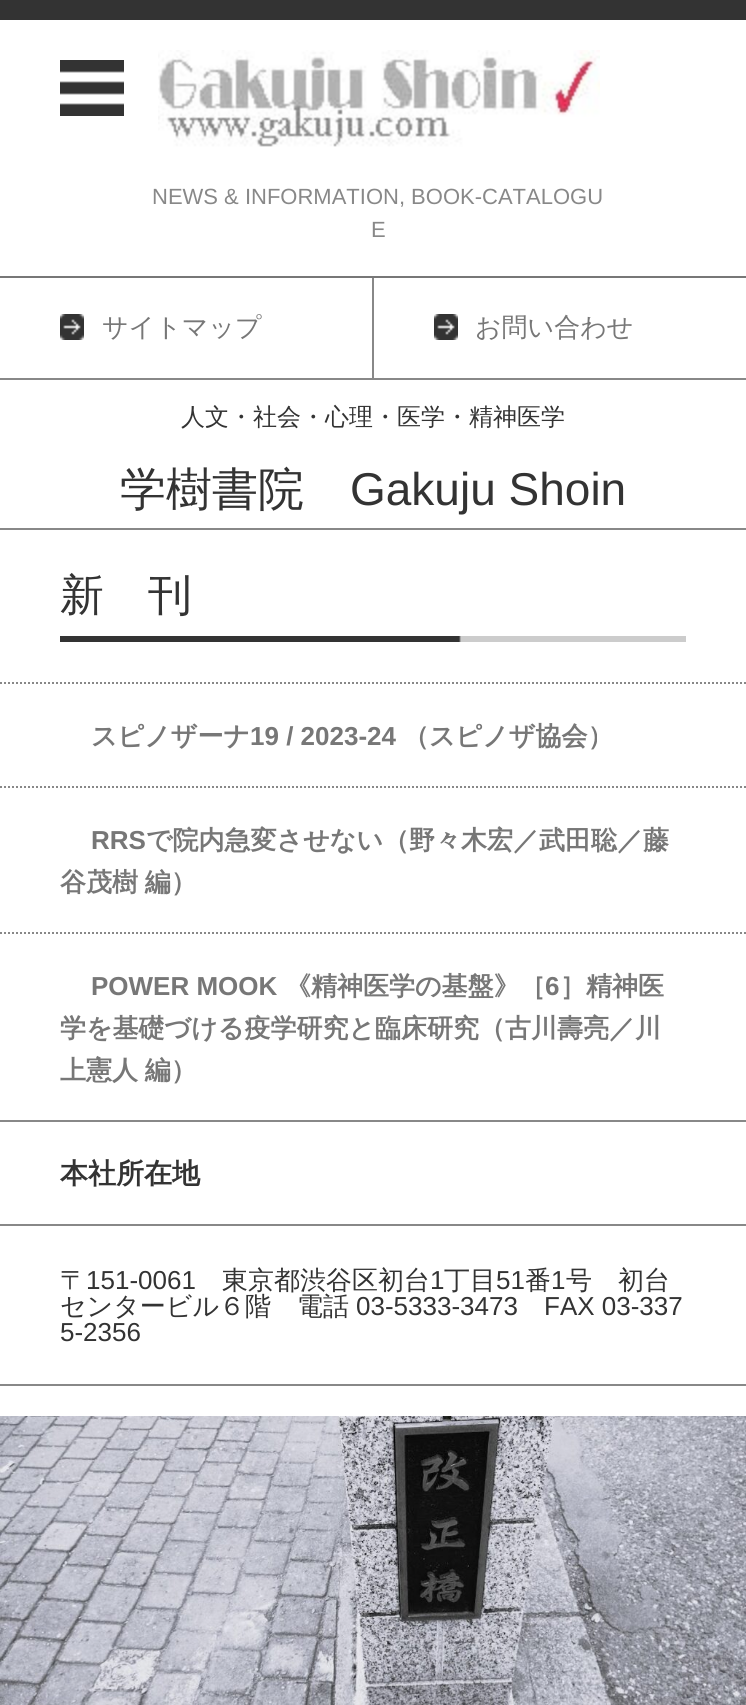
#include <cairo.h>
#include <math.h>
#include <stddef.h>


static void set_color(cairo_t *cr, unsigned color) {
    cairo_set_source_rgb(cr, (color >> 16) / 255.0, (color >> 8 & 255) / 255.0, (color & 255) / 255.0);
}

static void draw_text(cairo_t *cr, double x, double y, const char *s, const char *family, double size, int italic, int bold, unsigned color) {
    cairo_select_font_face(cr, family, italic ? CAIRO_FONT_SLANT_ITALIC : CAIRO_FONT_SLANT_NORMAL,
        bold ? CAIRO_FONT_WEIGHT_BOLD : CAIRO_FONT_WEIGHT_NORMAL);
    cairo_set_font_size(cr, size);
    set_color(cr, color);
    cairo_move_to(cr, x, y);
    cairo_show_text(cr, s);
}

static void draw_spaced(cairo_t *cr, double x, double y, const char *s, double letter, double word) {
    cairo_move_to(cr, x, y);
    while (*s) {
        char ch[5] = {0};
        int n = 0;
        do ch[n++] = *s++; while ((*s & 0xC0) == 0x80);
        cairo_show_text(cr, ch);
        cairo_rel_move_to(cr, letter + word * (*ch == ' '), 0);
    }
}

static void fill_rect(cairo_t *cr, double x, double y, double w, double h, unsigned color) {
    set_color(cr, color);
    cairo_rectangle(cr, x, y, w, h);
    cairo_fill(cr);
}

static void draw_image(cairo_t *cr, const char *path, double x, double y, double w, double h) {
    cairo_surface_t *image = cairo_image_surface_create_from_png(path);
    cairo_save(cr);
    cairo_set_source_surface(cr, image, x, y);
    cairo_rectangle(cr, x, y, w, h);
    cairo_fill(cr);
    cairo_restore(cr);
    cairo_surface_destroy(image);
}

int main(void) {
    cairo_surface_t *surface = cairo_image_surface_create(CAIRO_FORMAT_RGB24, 746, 1705);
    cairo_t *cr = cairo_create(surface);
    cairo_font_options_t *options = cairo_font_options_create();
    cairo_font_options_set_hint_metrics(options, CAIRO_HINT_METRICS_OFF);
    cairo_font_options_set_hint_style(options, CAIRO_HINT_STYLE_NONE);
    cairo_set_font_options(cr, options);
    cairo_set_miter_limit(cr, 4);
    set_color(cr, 0xFFFFFF);
    cairo_paint(cr);
    fill_rect(cr, 0, 0, 746, 20, 0x333333);
    draw_image(cr, "assets/img1.png", 60, 60, 64, 56);
    fill_rect(cr, 0, 276, 746, 2, 0x777777);
    draw_image(cr, "assets/img2.png", 158, 50, 442, 97);
    draw_text(cr, 152, 204, "NEWS & INFORMATION, BOOK-CATALOGU", "Liberation Sans", 22, 0, 0, 0x888888);
    draw_text(cr, 371, 237, "E", "Liberation Sans", 22, 0, 0, 0x888888);
    fill_rect(cr, 0, 378, 746, 2, 0x888888);
    draw_image(cr, "assets/img3.png", 60, 314, 24, 26);
    fill_rect(cr, 372, 278, 2, 100, 0x888888);
    draw_text(cr, 102, 336, "サイトマップ", "WenQuanYi Zen Hei Medium", 26, 0, 0, 0x777777);
    draw_image(cr, "assets/img3.png", 434, 314, 24, 26);
    draw_text(cr, 475, 336, "お問い合わせ", "WenQuanYi Zen Hei Medium", 26, 0, 0, 0x777777);
    draw_text(cr, 181, 425, "人文・社会・心理・医学・精神医学", "WenQuanYi Zen Hei Medium", 24, 0, 0, 0x333333);
    draw_text(cr, 120, 505, "学樹書院", "WenQuanYi Zen Hei Medium", 46, 0, 0, 0x333333);
    draw_text(cr, 350, 505, "Gakuju Shoin", "Liberation Sans", 46, 0, 0, 0x333333);
    fill_rect(cr, 0, 528, 746, 2, 0x888888);
    draw_image(cr, "assets/img4.png", 60, 636, 626, 6);
    draw_text(cr, 60, 610, "新　刊", "WenQuanYi Zen Hei Medium", 44, 0, 0, 0x333333);
    cairo_new_path(cr);
    cairo_move_to(cr, 0, 683);
    cairo_line_to(cr, 746, 683);
    set_color(cr, 0x888888);
    cairo_set_dash(cr, (double[]){2, 2}, 2, 0);
    cairo_stroke(cr);
    draw_text(cr, 91, 745, "スピノザーナ", "WenQuanYi Zen Hei", 26, 0, 1, 0x777777);
    draw_text(cr, 250, 745, "19 / 2023-24", "Liberation Sans", 26, 0, 1, 0x777777);
    draw_text(cr, 403, 745, "（スピノザ協会）", "WenQuanYi Zen Hei", 26, 0, 1, 0x777777);
    cairo_new_path(cr);
    cairo_move_to(cr, 0, 787);
    cairo_line_to(cr, 746, 787);
    set_color(cr, 0x888888);
    cairo_stroke(cr);
    draw_text(cr, 91, 849, "RRS", "Liberation Sans", 26, 0, 1, 0x777777);
    draw_text(cr, 146, 849, "で院内急変させない（野々木宏／武田聡／藤", "WenQuanYi Zen Hei", 26, 0, 1, 0x777777);
    draw_spaced(cr, 60, 891, "谷茂樹 編）", 0, -1);
    cairo_new_path(cr);
    cairo_move_to(cr, 0, 933);
    cairo_line_to(cr, 746, 933);
    set_color(cr, 0x888888);
    cairo_stroke(cr);
    draw_text(cr, 91, 995, "POWER MOOK", "Liberation Sans", 26, 0, 1, 0x777777);
    draw_text(cr, 285, 995, "《精神医学の基盤》［", "WenQuanYi Zen Hei", 26, 0, 1, 0x777777);
    draw_text(cr, 545, 995, "6", "Liberation Sans", 26, 0, 1, 0x777777);
    draw_text(cr, 560, 995, "］精神医", "WenQuanYi Zen Hei", 26, 0, 1, 0x777777);
    draw_text(cr, 60, 1037, "学を基礎づける疫学研究と臨床研究（古川壽亮／川", "WenQuanYi Zen Hei", 26, 0, 1, 0x777777);
    draw_spaced(cr, 60, 1079, "上憲人 編）", 0, -1);
    fill_rect(cr, 0, 1120, 746, 2, 0x888888);
    fill_rect(cr, 0, 1224, 746, 2, 0x888888);
    draw_text(cr, 60, 1183, "本社所在地", "WenQuanYi Zen Hei", 28, 0, 1, 0x333333);
    draw_text(cr, 60, 1289, "〒", "WenQuanYi Zen Hei Medium", 26, 0, 0, 0x333333);
    draw_text(cr, 86, 1289, "151-0061", "Liberation Sans", 26, 0, 0, 0x333333);
    draw_text(cr, 222, 1289, "東京都渋谷区初台", "WenQuanYi Zen Hei Medium", 26, 0, 0, 0x333333);
    draw_text(cr, 430, 1289, "1", "Liberation Sans", 26, 0, 0, 0x333333);
    draw_text(cr, 444, 1289, "丁目", "WenQuanYi Zen Hei Medium", 26, 0, 0, 0x333333);
    draw_text(cr, 496, 1289, "51", "Liberation Sans", 26, 0, 0, 0x333333);
    draw_text(cr, 525, 1289, "番", "WenQuanYi Zen Hei Medium", 26, 0, 0, 0x333333);
    draw_text(cr, 551, 1289, "1", "Liberation Sans", 26, 0, 0, 0x333333);
    draw_text(cr, 566, 1289, "号　初台", "WenQuanYi Zen Hei Medium", 26, 0, 0, 0x333333);
    draw_text(cr, 60, 1315, "センタービル６階　電話", "WenQuanYi Zen Hei Medium", 26, 0, 0, 0x333333);
    draw_text(cr, 356, 1315, "03-5333-3473", "Liberation Sans", 26, 0, 0, 0x333333);
    draw_text(cr, 544, 1315, "FAX 03-337", "Liberation Sans", 26, 0, 0, 0x333333);
    draw_text(cr, 60, 1341, "5-2356", "Liberation Sans", 26, 0, 0, 0x333333);
    fill_rect(cr, 0, 1384, 746, 2, 0x888888);
    draw_image(cr, "assets/img5.png", 0, 1416, 746, 289);
    cairo_surface_write_to_png(surface, "output.png");
    cairo_font_options_destroy(options);
    cairo_destroy(cr);
    cairo_surface_destroy(surface);
    return 0;
}
